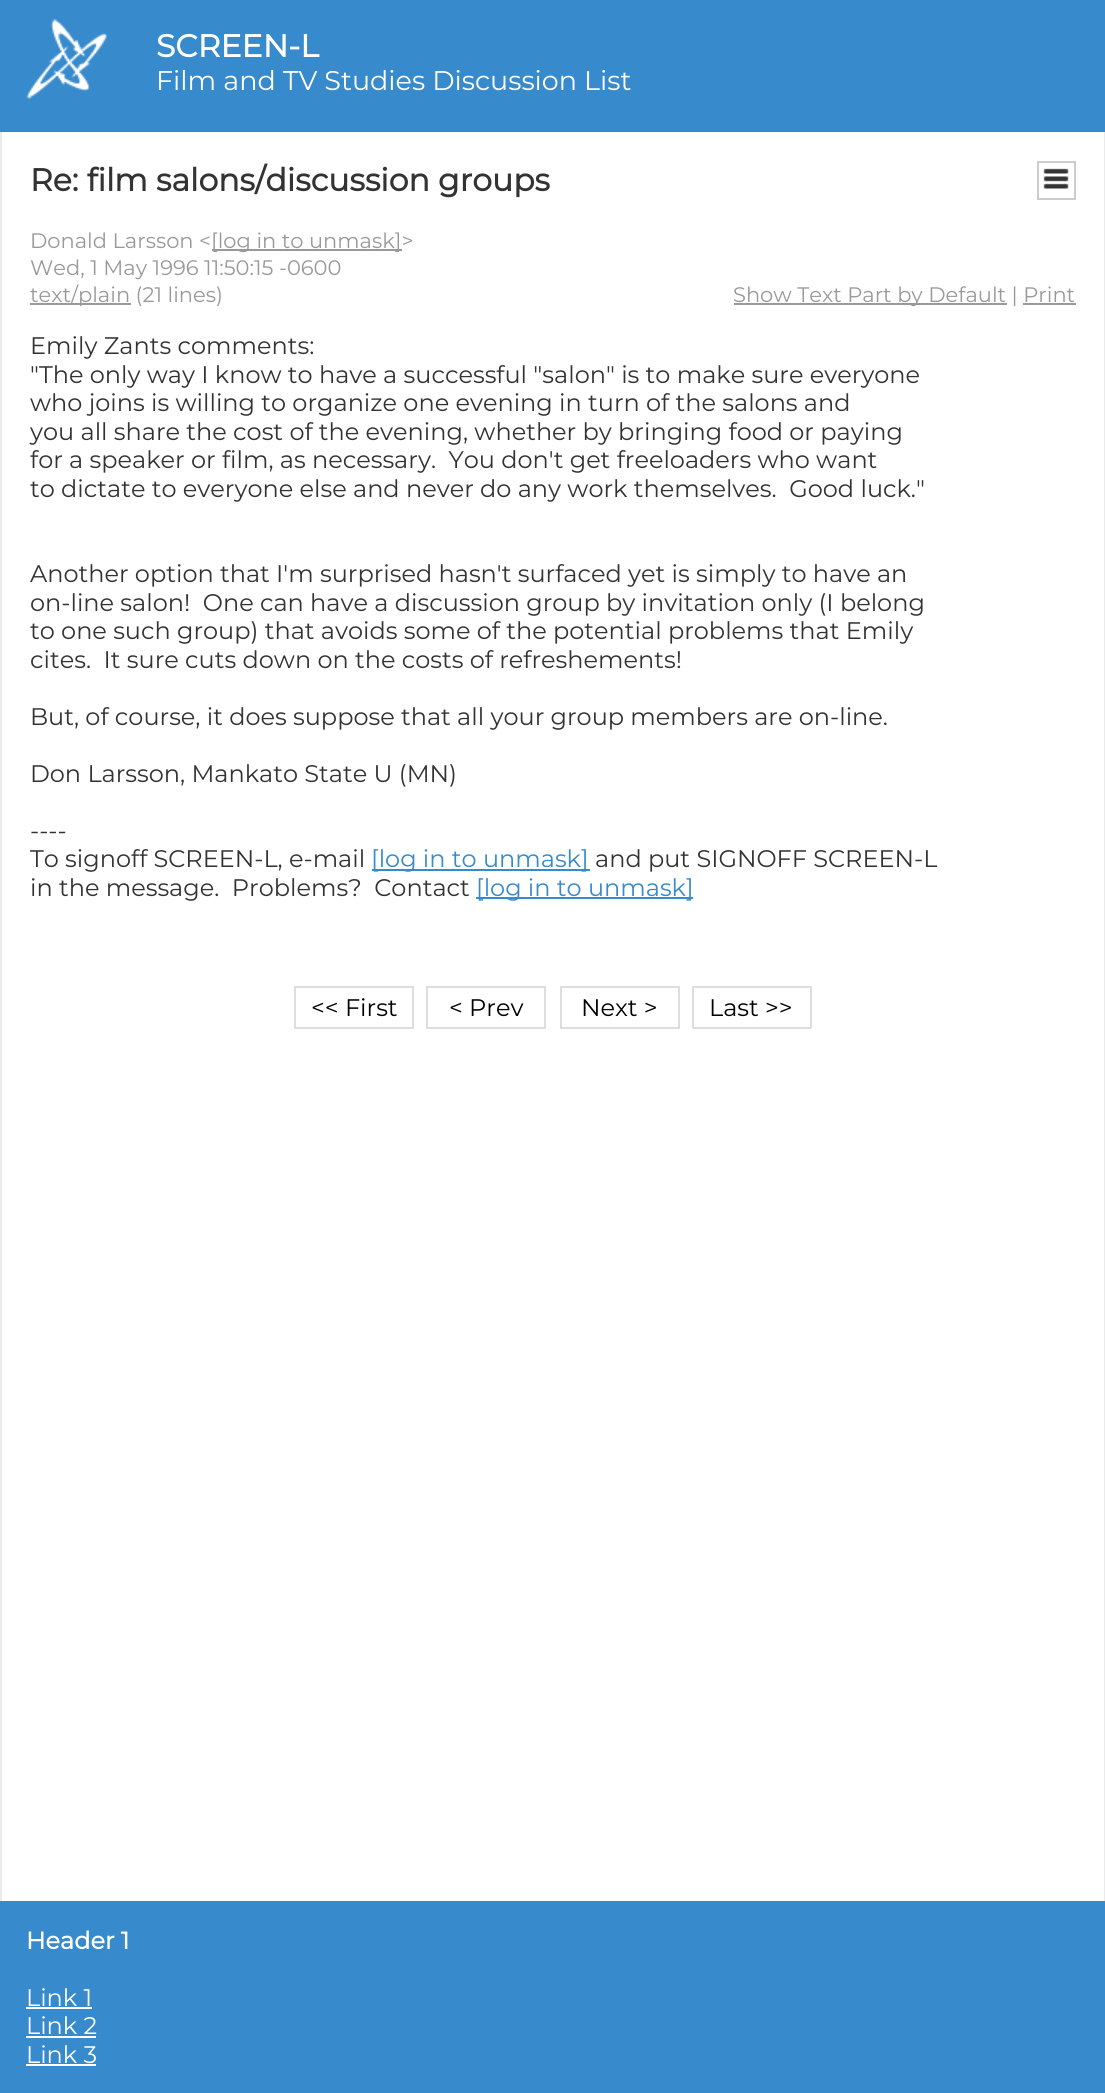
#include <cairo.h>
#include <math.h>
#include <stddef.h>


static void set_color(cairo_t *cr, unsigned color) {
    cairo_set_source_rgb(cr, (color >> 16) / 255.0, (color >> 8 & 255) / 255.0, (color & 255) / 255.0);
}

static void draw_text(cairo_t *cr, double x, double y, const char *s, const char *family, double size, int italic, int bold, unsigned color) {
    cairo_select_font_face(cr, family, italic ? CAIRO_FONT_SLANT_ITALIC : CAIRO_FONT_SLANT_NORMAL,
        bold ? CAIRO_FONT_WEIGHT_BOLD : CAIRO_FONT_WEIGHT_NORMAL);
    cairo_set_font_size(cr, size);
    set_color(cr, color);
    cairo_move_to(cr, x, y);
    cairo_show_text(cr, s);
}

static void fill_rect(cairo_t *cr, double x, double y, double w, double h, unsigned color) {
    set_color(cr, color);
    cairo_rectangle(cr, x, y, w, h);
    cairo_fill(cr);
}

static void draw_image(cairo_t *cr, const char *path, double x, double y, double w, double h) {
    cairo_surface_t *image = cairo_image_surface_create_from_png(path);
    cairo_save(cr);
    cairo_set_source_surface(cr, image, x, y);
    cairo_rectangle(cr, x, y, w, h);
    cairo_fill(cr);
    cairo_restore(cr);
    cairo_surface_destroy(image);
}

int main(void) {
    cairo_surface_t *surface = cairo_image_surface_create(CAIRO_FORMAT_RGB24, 1105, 2093);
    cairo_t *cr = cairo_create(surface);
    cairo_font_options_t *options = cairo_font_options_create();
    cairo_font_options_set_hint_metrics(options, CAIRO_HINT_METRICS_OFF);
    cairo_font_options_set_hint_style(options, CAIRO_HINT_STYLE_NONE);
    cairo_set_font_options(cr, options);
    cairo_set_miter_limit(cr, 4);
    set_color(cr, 0x378ACC);
    cairo_paint(cr);
    draw_image(cr, "assets/img1.png", 26, 18, 81, 81);
    draw_text(cr, 156, 57, "SCREEN-L", "Montserrat", 31.5, 0, 1, 0xFFFFFF);
    draw_text(cr, 156, 90, "Film and TV Studies Discussion List", "Montserrat Thin", 27, 0, 0, 0xFFFFFF);
    fill_rect(cr, 2, 132, 1102, 1769, 0xFFFFFF);
    fill_rect(cr, 1104, 132, 1, 1769, 0xEAEAEA);
    fill_rect(cr, 0, 132, 2, 1769, 0xEAEAEA);
    cairo_rectangle(cr, 1038, 162, 37, 37);
    set_color(cr, 0xCCCCCC);
    cairo_stroke(cr);
    draw_image(cr, "assets/img2.png", 1043, 168, 26, 21);
    draw_text(cr, 30, 191, "Re: film salons/discussion groups", "Montserrat", 31.5, 0, 1, 0x333333);
    draw_text(cr, 30, 248, "Donald Larsson <", "Montserrat Thin", 21, 0, 0, 0x999999);
    fill_rect(cr, 212, 249, 190, 2, 0x999999);
    draw_text(cr, 211, 248, "[log in to unmask]>", "Montserrat Thin", 21, 0, 0, 0x999999);
    draw_text(cr, 30, 275, "Wed, 1 May 1996 11:50:15 -0600", "Montserrat Thin", 21, 0, 0, 0x999999);
    fill_rect(cr, 30, 303, 101, 2, 0x999999);
    draw_text(cr, 30, 302, "text/plain (21 lines)", "Montserrat Thin", 21, 0, 0, 0x999999);
    fill_rect(cr, 734, 303, 273, 2, 0x999999);
    draw_text(cr, 733, 302, "Show Text Part by Default | Print", "Montserrat Thin", 21, 0, 0, 0x999999);
    fill_rect(cr, 1023, 303, 53, 2, 0x999999);
    draw_text(cr, 30, 354, "Emily Zants comments:", "Montserrat Thin", 24, 0, 0, 0x333333);
    draw_text(cr, 30, 383, "\"The only way I know to have a successful \"salon\" is to make sure everyone", "Montserrat Thin", 24, 0, 0, 0x333333);
    draw_text(cr, 30, 411, "who joins is willing to organize one evening in turn of the salons and", "Montserrat Thin", 24, 0, 0, 0x333333);
    draw_text(cr, 30, 440, "you all share the cost of the evening, whether by bringing food or paying", "Montserrat Thin", 24, 0, 0, 0x333333);
    draw_text(cr, 30, 468, "for a speaker or film, as necessary.  You don't get freeloaders who want", "Montserrat Thin", 24, 0, 0, 0x333333);
    draw_text(cr, 30, 497, "to dictate to everyone else and never do any work themselves.  Good luck.\"", "Montserrat Thin", 24, 0, 0, 0x333333);
    draw_text(cr, 30, 582, "Another option that I'm surprised hasn't surfaced yet is simply to have an", "Montserrat Thin", 24, 0, 0, 0x333333);
    draw_text(cr, 30, 611, "on-line salon!  One can have a discussion group by invitation only (I belong", "Montserrat Thin", 24, 0, 0, 0x333333);
    draw_text(cr, 30, 639, "to one such group) that avoids some of the potential problems that Emily", "Montserrat Thin", 24, 0, 0, 0x333333);
    draw_text(cr, 30, 668, "cites.  It sure cuts down on the costs of refreshements!", "Montserrat Thin", 24, 0, 0, 0x333333);
    draw_text(cr, 30, 725, "But, of course, it does suppose that all your group members are on-line.", "Montserrat Thin", 24, 0, 0, 0x333333);
    draw_text(cr, 30, 782, "Don Larsson, Mankato State U (MN)", "Montserrat Thin", 24, 0, 0, 0x333333);
    draw_text(cr, 30, 839, "----", "Montserrat Thin", 24, 0, 0, 0x333333);
    draw_text(cr, 30, 867, "To signoff SCREEN-L, e-mail", "Montserrat Thin", 24, 0, 0, 0x333333);
    fill_rect(cr, 372, 869, 218, 2, 0x378ACC);
    draw_text(cr, 371, 867, "[log in to unmask]", "Montserrat Thin", 24, 0, 0, 0x378ACC);
    draw_text(cr, 595, 867, "and put SIGNOFF SCREEN-L", "Montserrat Thin", 24, 0, 0, 0x333333);
    draw_text(cr, 30, 896, "in the message.  Problems?  Contact", "Montserrat Thin", 24, 0, 0, 0x333333);
    fill_rect(cr, 476, 897, 217, 2, 0x378ACC);
    draw_text(cr, 476, 896, "[log in to unmask]", "Montserrat Thin", 24, 0, 0, 0x378ACC);
    cairo_rectangle(cr, 295, 987, 118, 41);
    set_color(cr, 0xDEDEDE);
    cairo_stroke(cr);
    draw_text(cr, 311, 1016, "<< First", "Montserrat Thin", 24, 0, 0, 0x000000);
    cairo_rectangle(cr, 427, 987, 118, 41);
    set_color(cr, 0xDEDEDE);
    cairo_stroke(cr);
    draw_text(cr, 449, 1016, "< Prev", "Montserrat Thin", 24, 0, 0, 0x000000);
    cairo_rectangle(cr, 561, 987, 118, 41);
    set_color(cr, 0xDEDEDE);
    cairo_stroke(cr);
    draw_text(cr, 581, 1016, "Next >", "Montserrat Thin", 24, 0, 0, 0x000000);
    cairo_rectangle(cr, 693, 987, 118, 41);
    set_color(cr, 0xDEDEDE);
    cairo_stroke(cr);
    draw_text(cr, 709, 1016, "Last >>", "Montserrat Thin", 24, 0, 0, 0x000000);
    draw_text(cr, 26, 1949, "Header 1", "Montserrat", 24, 0, 1, 0xFFFFFF);
    draw_text(cr, 26, 2006, "Link 1", "Montserrat Thin", 24, 0, 0, 0xFFFFFF);
    fill_rect(cr, 26, 2007, 66, 2, 0xFFFFFF);
    draw_text(cr, 26, 2034, "Link 2", "Montserrat Thin", 24, 0, 0, 0xFFFFFF);
    fill_rect(cr, 26, 2036, 70, 2, 0xFFFFFF);
    draw_text(cr, 26, 2063, "Link 3", "Montserrat Thin", 24, 0, 0, 0xFFFFFF);
    fill_rect(cr, 26, 2064, 70, 2, 0xFFFFFF);
    cairo_surface_write_to_png(surface, "output.png");
    cairo_font_options_destroy(options);
    cairo_destroy(cr);
    cairo_surface_destroy(surface);
    return 0;
}
